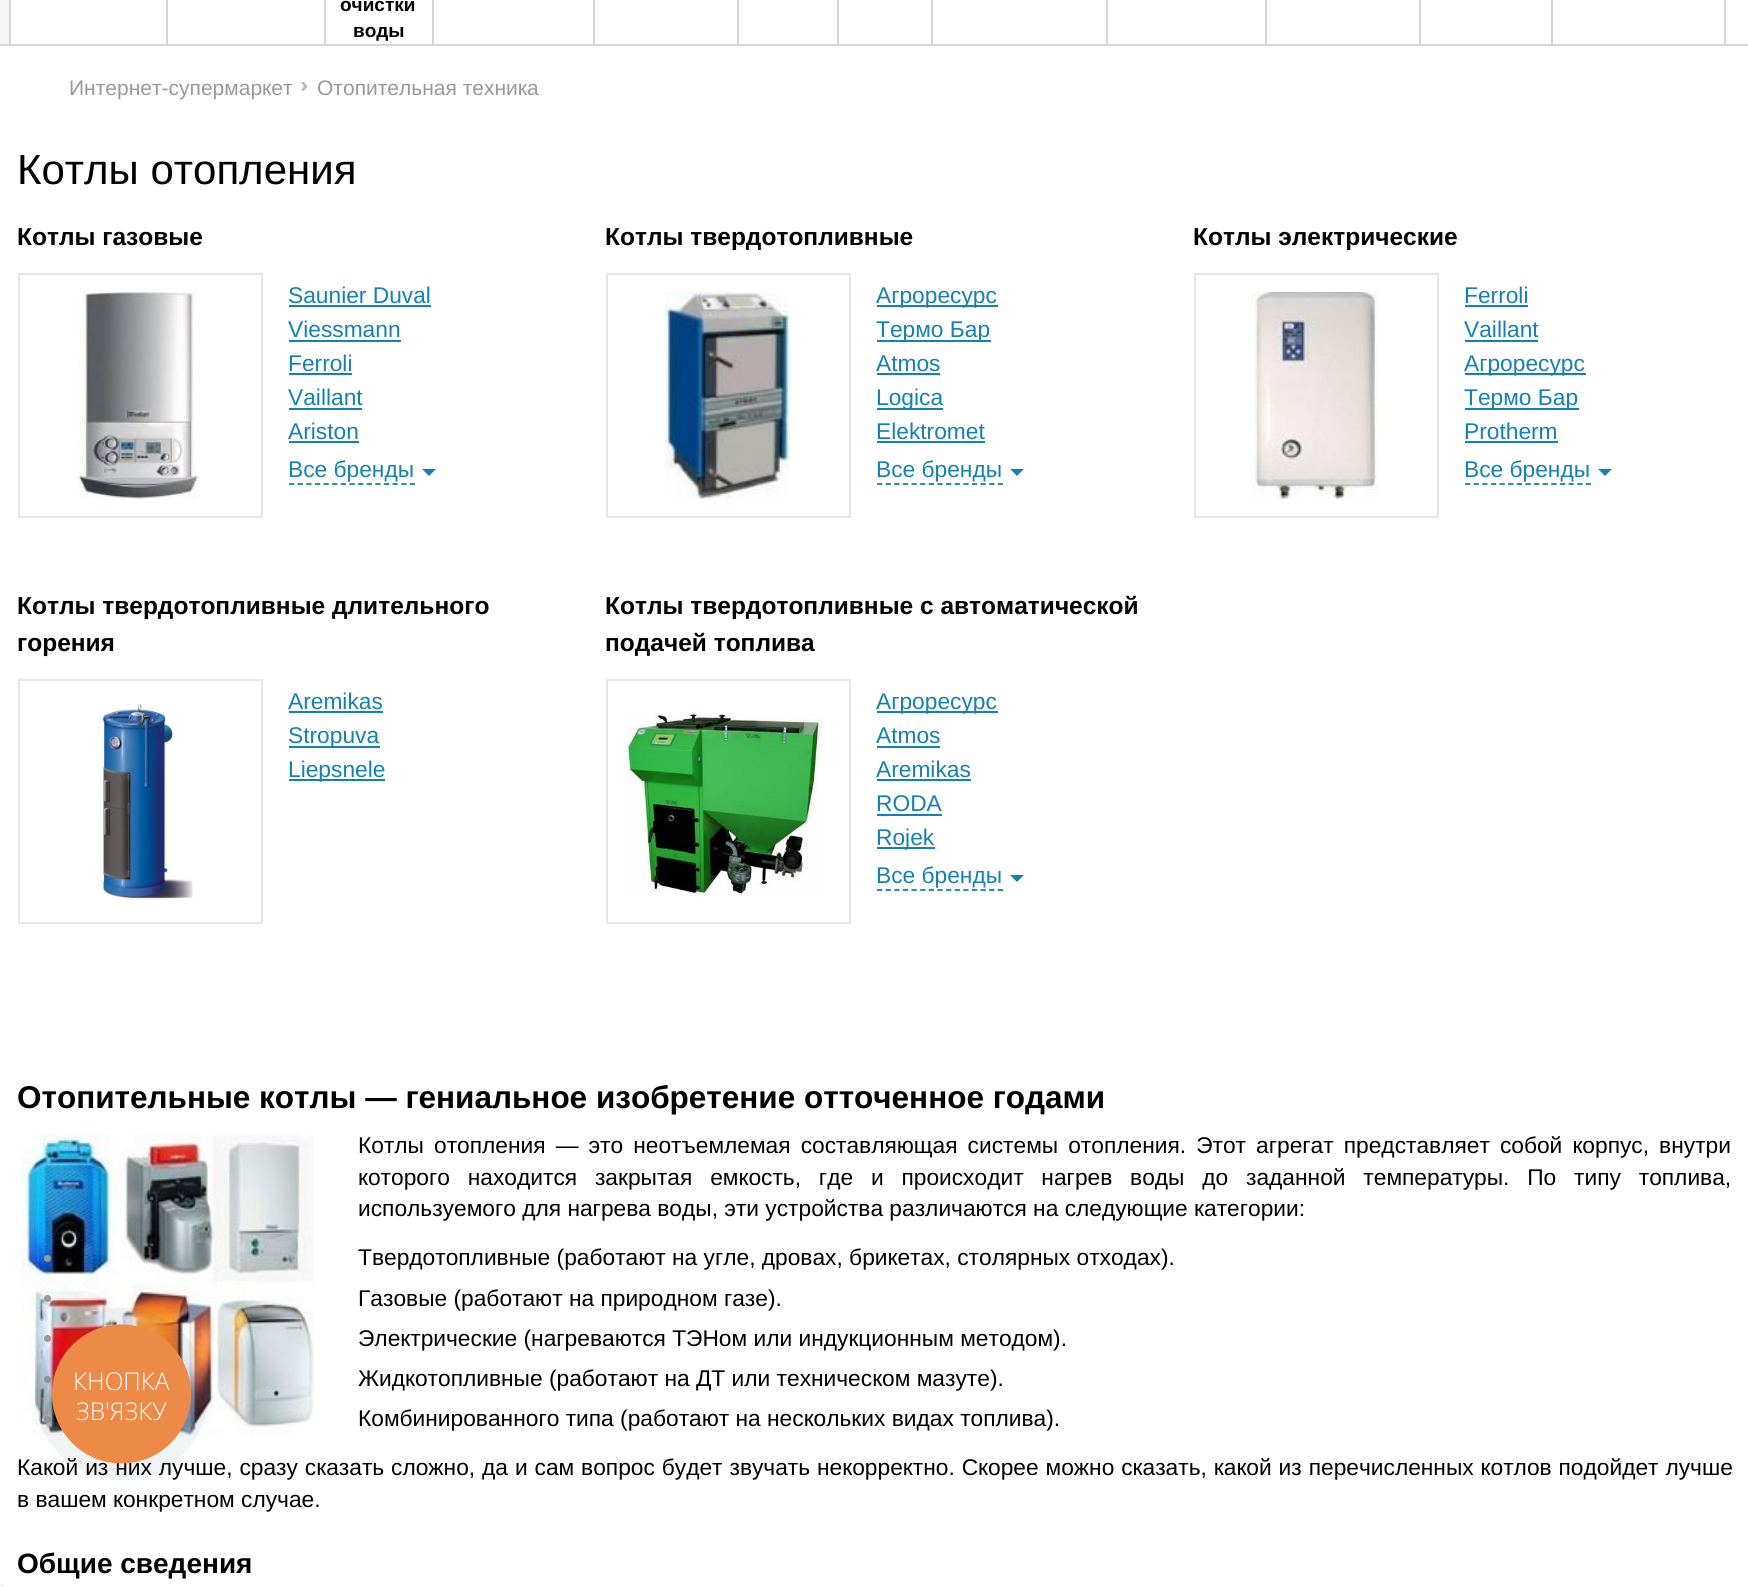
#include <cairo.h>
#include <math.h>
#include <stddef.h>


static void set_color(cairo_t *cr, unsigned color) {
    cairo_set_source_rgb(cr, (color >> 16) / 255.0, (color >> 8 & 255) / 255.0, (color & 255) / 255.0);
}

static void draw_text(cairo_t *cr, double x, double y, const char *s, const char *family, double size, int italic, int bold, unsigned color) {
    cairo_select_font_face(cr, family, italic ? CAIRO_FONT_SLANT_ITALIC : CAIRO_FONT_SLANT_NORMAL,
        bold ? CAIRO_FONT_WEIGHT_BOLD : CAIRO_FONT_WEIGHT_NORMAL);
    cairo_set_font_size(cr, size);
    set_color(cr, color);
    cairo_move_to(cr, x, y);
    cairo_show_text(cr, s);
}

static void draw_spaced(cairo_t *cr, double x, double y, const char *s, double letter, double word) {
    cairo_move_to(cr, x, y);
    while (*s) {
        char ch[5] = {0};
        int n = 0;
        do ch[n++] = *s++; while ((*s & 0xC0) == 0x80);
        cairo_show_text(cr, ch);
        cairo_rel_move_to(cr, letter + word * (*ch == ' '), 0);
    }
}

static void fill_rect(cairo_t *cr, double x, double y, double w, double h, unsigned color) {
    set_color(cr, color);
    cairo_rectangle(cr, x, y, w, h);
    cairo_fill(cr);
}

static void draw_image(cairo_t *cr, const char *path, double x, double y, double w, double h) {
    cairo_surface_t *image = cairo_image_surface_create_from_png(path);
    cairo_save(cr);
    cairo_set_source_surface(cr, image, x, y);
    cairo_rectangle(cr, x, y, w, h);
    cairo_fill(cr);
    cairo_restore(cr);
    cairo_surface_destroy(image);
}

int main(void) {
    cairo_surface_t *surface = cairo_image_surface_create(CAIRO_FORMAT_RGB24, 1748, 1587);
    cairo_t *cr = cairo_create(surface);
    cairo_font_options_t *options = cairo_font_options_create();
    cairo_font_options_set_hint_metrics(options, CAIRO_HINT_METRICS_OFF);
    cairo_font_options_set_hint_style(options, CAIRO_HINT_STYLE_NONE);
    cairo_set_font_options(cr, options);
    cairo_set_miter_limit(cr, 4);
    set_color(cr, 0xFFFFFF);
    cairo_paint(cr);
    fill_rect(cr, 0, 0, 9, 44, 0xF5F5F5);
    fill_rect(cr, 0, 44, 1748, 2, 0xD6D6D6);
    fill_rect(cr, 9, 0, 2, 44, 0xD6D6D6);
    fill_rect(cr, 166, 0, 2, 44, 0xD6D6D6);
    fill_rect(cr, 324, 0, 2, 44, 0xD6D6D6);
    draw_text(cr, 340, 11, "очистки", "Liberation Sans", 19, 0, 1, 0x000000);
    draw_text(cr, 353, 37, "воды", "Liberation Sans", 19, 0, 1, 0x000000);
    fill_rect(cr, 432, 0, 2, 44, 0xD6D6D6);
    fill_rect(cr, 593, 0, 2, 44, 0xD6D6D6);
    fill_rect(cr, 737, 0, 2, 44, 0xD6D6D6);
    fill_rect(cr, 837, 0, 2, 44, 0xD6D6D6);
    fill_rect(cr, 931, 0, 2, 44, 0xD6D6D6);
    fill_rect(cr, 1106, 0, 2, 44, 0xD6D6D6);
    fill_rect(cr, 1265, 0, 2, 44, 0xD6D6D6);
    fill_rect(cr, 1419, 0, 2, 44, 0xD6D6D6);
    fill_rect(cr, 1551, 0, 2, 44, 0xD6D6D6);
    fill_rect(cr, 1724, 0, 2, 44, 0xD6D6D6);
    draw_text(cr, 69, 95, "Интернет-супермаркет", "Liberation Sans", 21, 0, 0, 0x999999);
    draw_image(cr, "assets/img1.png", 301, 82, 7, 9);
    draw_text(cr, 317, 95, "Отопительная техника", "Liberation Sans", 21, 0, 0, 0x999999);
    draw_text(cr, 17, 184, "Котлы отопления", "Liberation Sans", 42, 0, 0, 0x000000);
    draw_text(cr, 17, 245, "Котлы газовые", "Liberation Sans", 24.5, 0, 1, 0x000000);
    cairo_rectangle(cr, 19, 274, 243, 243);
    set_color(cr, 0xE6E6E6);
    cairo_stroke(cr);
    draw_image(cr, "assets/img2.png", 78, 292, 122, 207);
    draw_text(cr, 288, 303, "Saunier Duval", "Liberation Sans", 22.75, 0, 0, 0x1781AE);
    fill_rect(cr, 289, 305, 142, 2, 0x1781AE);
    draw_text(cr, 288, 337, "Viessmann", "Liberation Sans", 22.75, 0, 0, 0x1781AE);
    fill_rect(cr, 289, 340, 112, 2, 0x1781AE);
    draw_text(cr, 288, 371, "Ferroli", "Liberation Sans", 22.75, 0, 0, 0x1781AE);
    fill_rect(cr, 289, 373, 63, 2, 0x1781AE);
    draw_text(cr, 288, 405, "Vaillant", "Liberation Sans", 22.75, 0, 0, 0x1781AE);
    fill_rect(cr, 289, 408, 73, 2, 0x1781AE);
    draw_text(cr, 288, 439, "Ariston", "Liberation Sans", 22.75, 0, 0, 0x1781AE);
    fill_rect(cr, 289, 441, 70, 2, 0x1781AE);
    cairo_new_path(cr);
    cairo_move_to(cr, 289, 484);
    cairo_line_to(cr, 415, 484);
    cairo_set_line_width(cr, 1.8);
    cairo_set_dash(cr, (double[]){5.25, 3.38}, 2, 0);
    cairo_stroke(cr);
    draw_text(cr, 288, 477, "Все бренды", "Liberation Sans", 22.75, 0, 0, 0x1781AE);
    cairo_new_path(cr);
    cairo_move_to(cr, 422, 469);
    cairo_line_to(cr, 436, 469);
    cairo_line_to(cr, 429, 476);
    cairo_close_path(cr);
    cairo_fill(cr);
    draw_text(cr, 605, 245, "Котлы твердотопливные", "Liberation Sans", 24.5, 0, 1, 0x000000);
    cairo_rectangle(cr, 607, 274, 243, 243);
    set_color(cr, 0xE6E6E6);
    cairo_set_line_width(cr, 2);
    cairo_set_dash(cr, NULL, 0, 0);
    cairo_stroke(cr);
    draw_image(cr, "assets/img3.png", 665, 292, 125, 207);
    fill_rect(cr, 877, 305, 121, 2, 0x1781AE);
    draw_text(cr, 876, 303, "Агроресурс", "Liberation Sans", 22.75, 0, 0, 0x1781AE);
    fill_rect(cr, 877, 340, 114, 2, 0x1781AE);
    draw_text(cr, 876, 337, "Термо Бар", "Liberation Sans", 22.75, 0, 0, 0x1781AE);
    draw_text(cr, 876, 371, "Atmos", "Liberation Sans", 22.75, 0, 0, 0x1781AE);
    fill_rect(cr, 877, 373, 63, 2, 0x1781AE);
    fill_rect(cr, 877, 408, 66, 2, 0x1781AE);
    draw_text(cr, 876, 405, "Logica", "Liberation Sans", 22.75, 0, 0, 0x1781AE);
    draw_text(cr, 876, 439, "Elektromet", "Liberation Sans", 22.75, 0, 0, 0x1781AE);
    fill_rect(cr, 877, 441, 108, 2, 0x1781AE);
    cairo_new_path(cr);
    cairo_move_to(cr, 877, 484);
    cairo_line_to(cr, 1003, 484);
    cairo_set_line_width(cr, 1.8);
    cairo_set_dash(cr, (double[]){5.25, 3.38}, 2, 0);
    cairo_stroke(cr);
    draw_text(cr, 876, 477, "Все бренды", "Liberation Sans", 22.75, 0, 0, 0x1781AE);
    cairo_new_path(cr);
    cairo_move_to(cr, 1010, 469);
    cairo_line_to(cr, 1024, 469);
    cairo_line_to(cr, 1017, 476);
    cairo_close_path(cr);
    cairo_fill(cr);
    draw_text(cr, 1193, 245, "Котлы электрические", "Liberation Sans", 24.5, 0, 1, 0x000000);
    cairo_rectangle(cr, 1195, 274, 243, 243);
    set_color(cr, 0xE6E6E6);
    cairo_set_line_width(cr, 2);
    cairo_set_dash(cr, NULL, 0, 0);
    cairo_stroke(cr);
    draw_image(cr, "assets/img4.png", 1250, 292, 129, 207);
    draw_text(cr, 1464, 303, "Ferroli", "Liberation Sans", 22.75, 0, 0, 0x1781AE);
    fill_rect(cr, 1465, 305, 63, 2, 0x1781AE);
    draw_text(cr, 1464, 337, "Vaillant", "Liberation Sans", 22.75, 0, 0, 0x1781AE);
    fill_rect(cr, 1465, 340, 73, 2, 0x1781AE);
    fill_rect(cr, 1465, 373, 121, 2, 0x1781AE);
    draw_text(cr, 1464, 371, "Агроресурс", "Liberation Sans", 22.75, 0, 0, 0x1781AE);
    fill_rect(cr, 1465, 408, 114, 2, 0x1781AE);
    draw_text(cr, 1464, 405, "Термо Бар", "Liberation Sans", 22.75, 0, 0, 0x1781AE);
    draw_text(cr, 1464, 439, "Protherm", "Liberation Sans", 22.75, 0, 0, 0x1781AE);
    fill_rect(cr, 1465, 441, 93, 2, 0x1781AE);
    cairo_new_path(cr);
    cairo_move_to(cr, 1465, 484);
    cairo_line_to(cr, 1591, 484);
    cairo_set_line_width(cr, 1.8);
    cairo_set_dash(cr, (double[]){5.25, 3.38}, 2, 0);
    cairo_stroke(cr);
    draw_text(cr, 1464, 477, "Все бренды", "Liberation Sans", 22.75, 0, 0, 0x1781AE);
    cairo_new_path(cr);
    cairo_move_to(cr, 1598, 469);
    cairo_line_to(cr, 1612, 469);
    cairo_line_to(cr, 1605, 476);
    cairo_close_path(cr);
    cairo_fill(cr);
    draw_text(cr, 17, 614, "Котлы твердотопливные длительного", "Liberation Sans", 24.5, 0, 1, 0x000000);
    draw_text(cr, 17, 651, "горения", "Liberation Sans", 24.5, 0, 1, 0x000000);
    cairo_rectangle(cr, 19, 680, 243, 243);
    set_color(cr, 0xE6E6E6);
    cairo_set_line_width(cr, 2);
    cairo_set_dash(cr, NULL, 0, 0);
    cairo_stroke(cr);
    draw_image(cr, "assets/img5.png", 99, 704, 94, 195);
    draw_text(cr, 288, 709, "Aremikas", "Liberation Sans", 22.75, 0, 0, 0x1781AE);
    fill_rect(cr, 289, 711, 94, 2, 0x1781AE);
    fill_rect(cr, 289, 746, 91, 2, 0x1781AE);
    draw_text(cr, 288, 743, "Stropuva", "Liberation Sans", 22.75, 0, 0, 0x1781AE);
    fill_rect(cr, 289, 779, 96, 2, 0x1781AE);
    draw_text(cr, 288, 777, "Liepsnele", "Liberation Sans", 22.75, 0, 0, 0x1781AE);
    draw_text(cr, 605, 614, "Котлы твердотопливные с автоматической", "Liberation Sans", 24.5, 0, 1, 0x000000);
    draw_text(cr, 605, 651, "подачей топлива", "Liberation Sans", 24.5, 0, 1, 0x000000);
    cairo_rectangle(cr, 607, 680, 243, 243);
    set_color(cr, 0xE6E6E6);
    cairo_stroke(cr);
    draw_image(cr, "assets/img6.png", 625, 713, 200, 184);
    fill_rect(cr, 877, 711, 121, 2, 0x1781AE);
    draw_text(cr, 876, 709, "Агроресурс", "Liberation Sans", 22.75, 0, 0, 0x1781AE);
    draw_text(cr, 876, 743, "Atmos", "Liberation Sans", 22.75, 0, 0, 0x1781AE);
    fill_rect(cr, 877, 746, 63, 2, 0x1781AE);
    draw_text(cr, 876, 777, "Aremikas", "Liberation Sans", 22.75, 0, 0, 0x1781AE);
    fill_rect(cr, 877, 779, 94, 2, 0x1781AE);
    draw_text(cr, 876, 811, "RODA", "Liberation Sans", 22.75, 0, 0, 0x1781AE);
    fill_rect(cr, 877, 814, 65, 2, 0x1781AE);
    fill_rect(cr, 877, 847, 58, 2, 0x1781AE);
    draw_text(cr, 876, 845, "Rojek", "Liberation Sans", 22.75, 0, 0, 0x1781AE);
    cairo_new_path(cr);
    cairo_move_to(cr, 877, 890);
    cairo_line_to(cr, 1003, 890);
    cairo_set_line_width(cr, 1.8);
    cairo_set_dash(cr, (double[]){5.25, 3.38}, 2, 0);
    cairo_stroke(cr);
    draw_text(cr, 876, 883, "Все бренды", "Liberation Sans", 22.75, 0, 0, 0x1781AE);
    cairo_new_path(cr);
    cairo_move_to(cr, 1010, 875);
    cairo_line_to(cr, 1024, 875);
    cairo_line_to(cr, 1017, 882);
    cairo_close_path(cr);
    cairo_fill(cr);
    draw_text(cr, 17, 1108, "Отопительные котлы — гениальное изобретение отточенное годами", "Liberation Sans", 31.5, 0, 1, 0x000000);
    draw_image(cr, "assets/img7.png", 21, 1133, 293, 303);
    cairo_select_font_face(cr, "Liberation Sans", CAIRO_FONT_SLANT_NORMAL, CAIRO_FONT_WEIGHT_NORMAL);
    cairo_set_font_size(cr, 22.75);
    draw_spaced(cr, 358, 1153, "Котлы отопления — это неотъемлемая составляющая системы отопления. Этот агрегат представляет собой корпус, внутри", 0, 3.75);
    draw_spaced(cr, 358, 1185, "которого находится закрытая емкость, где и происходит нагрев воды до заданной температуры. По типу топлива,", 0, 11.5);
    draw_text(cr, 358, 1216, "используемого для нагрева воды, эти устройства различаются на следующие категории:", "Liberation Sans", 22.75, 0, 0, 0x000000);
    set_color(cr, 0x999999);
    cairo_new_path(cr);
    cairo_arc(cr, 47.5, 1258.5, 3.5, 0, 2 * M_PI);
    cairo_fill(cr);
    draw_text(cr, 358, 1265, "Твердотопливные (работают на угле, дровах, брикетах, столярных отходах).", "Liberation Sans", 22.75, 0, 0, 0x000000);
    set_color(cr, 0x999999);
    cairo_new_path(cr);
    cairo_arc(cr, 47.5, 1298.5, 3.5, 0, 2 * M_PI);
    cairo_fill(cr);
    draw_text(cr, 358, 1306, "Газовые (работают на природном газе).", "Liberation Sans", 22.75, 0, 0, 0x000000);
    set_color(cr, 0x999999);
    cairo_new_path(cr);
    cairo_arc(cr, 47.5, 1338.5, 3.5, 0, 2 * M_PI);
    cairo_fill(cr);
    draw_text(cr, 358, 1346, "Электрические (нагреваются ТЭНом или индукционным методом).", "Liberation Sans", 22.75, 0, 0, 0x000000);
    set_color(cr, 0x999999);
    cairo_new_path(cr);
    cairo_arc(cr, 47.5, 1379.5, 3.5, 0, 2 * M_PI);
    cairo_fill(cr);
    draw_text(cr, 358, 1386, "Жидкотопливные (работают на ДТ или техническом мазуте).", "Liberation Sans", 22.75, 0, 0, 0x000000);
    set_color(cr, 0x999999);
    cairo_new_path(cr);
    cairo_arc(cr, 47.5, 1419.5, 3.5, 0, 2 * M_PI);
    cairo_fill(cr);
    draw_text(cr, 358, 1426, "Комбинированного типа (работают на нескольких видах топлива).", "Liberation Sans", 22.75, 0, 0, 0x000000);
    draw_spaced(cr, 17, 1475, "Какой из них лучше, сразу сказать сложно, да и сам вопрос будет звучать некорректно. Скорее можно сказать, какой из перечисленных котлов подойдет лучше", 0, 0.6);
    draw_text(cr, 17, 1507, "в вашем конкретном случае.", "Liberation Sans", 22.75, 0, 0, 0x000000);
    draw_text(cr, 17, 1573, "Общие сведения", "Liberation Sans", 28, 0, 1, 0x000000);
    cairo_set_source_rgba(cr, 0.165, 0.251, 0.365, 0.06);
    cairo_new_path(cr);
    cairo_arc(cr, 121.5, 1394, 86.5, 0, 2 * M_PI);
    cairo_fill(cr);
    set_color(cr, 0xED8A47);
    cairo_arc(cr, 121.5, 1394, 69.5, 0, 2 * M_PI);
    cairo_fill(cr);
    draw_text(cr, 73, 1390, "КНОПКА", "Open Sans Light", 24.5, 0, 0, 0xFFFFFF);
    draw_text(cr, 76, 1420, "ЗВ'ЯЗКУ", "Open Sans Light", 24.5, 0, 0, 0xFFFFFF);
    fill_rect(cr, 0, 1584, 4, 3, 0xF5F5F5);
    cairo_surface_write_to_png(surface, "output.png");
    cairo_font_options_destroy(options);
    cairo_destroy(cr);
    cairo_surface_destroy(surface);
    return 0;
}
